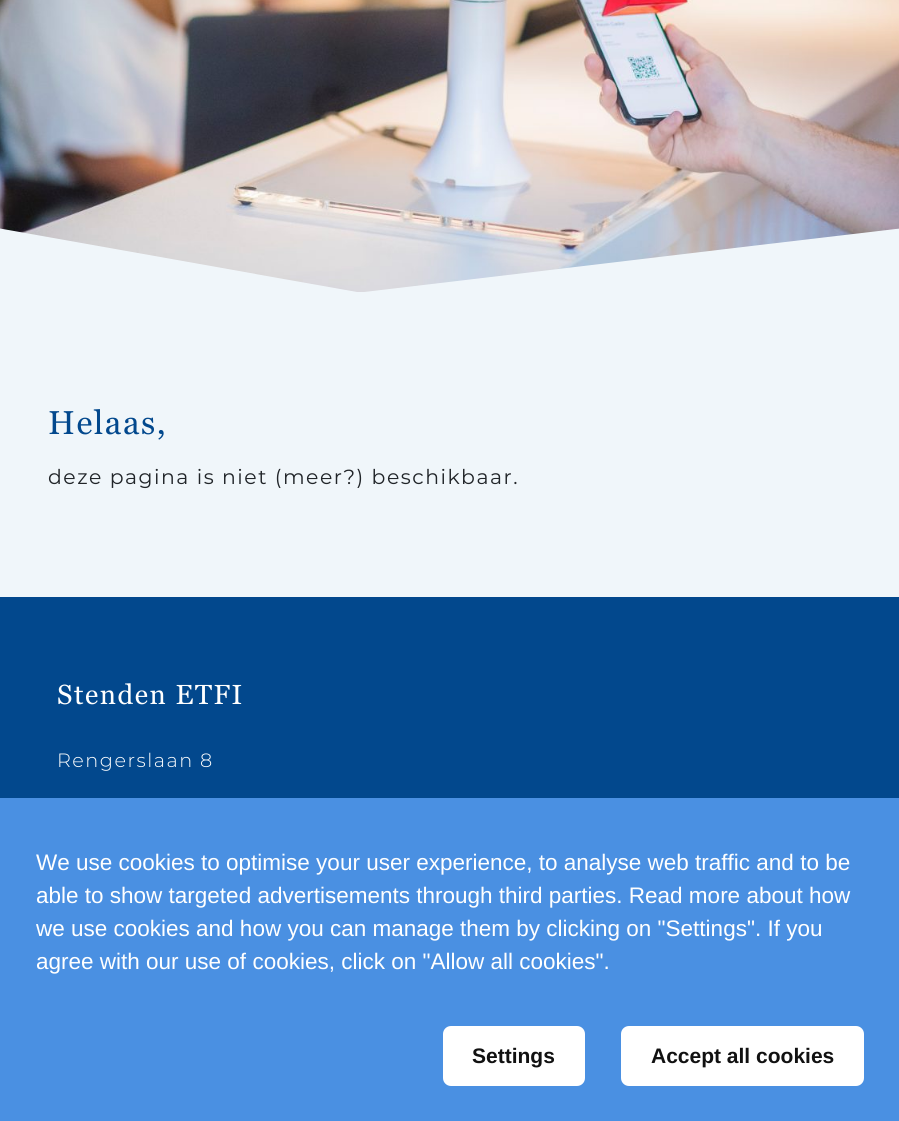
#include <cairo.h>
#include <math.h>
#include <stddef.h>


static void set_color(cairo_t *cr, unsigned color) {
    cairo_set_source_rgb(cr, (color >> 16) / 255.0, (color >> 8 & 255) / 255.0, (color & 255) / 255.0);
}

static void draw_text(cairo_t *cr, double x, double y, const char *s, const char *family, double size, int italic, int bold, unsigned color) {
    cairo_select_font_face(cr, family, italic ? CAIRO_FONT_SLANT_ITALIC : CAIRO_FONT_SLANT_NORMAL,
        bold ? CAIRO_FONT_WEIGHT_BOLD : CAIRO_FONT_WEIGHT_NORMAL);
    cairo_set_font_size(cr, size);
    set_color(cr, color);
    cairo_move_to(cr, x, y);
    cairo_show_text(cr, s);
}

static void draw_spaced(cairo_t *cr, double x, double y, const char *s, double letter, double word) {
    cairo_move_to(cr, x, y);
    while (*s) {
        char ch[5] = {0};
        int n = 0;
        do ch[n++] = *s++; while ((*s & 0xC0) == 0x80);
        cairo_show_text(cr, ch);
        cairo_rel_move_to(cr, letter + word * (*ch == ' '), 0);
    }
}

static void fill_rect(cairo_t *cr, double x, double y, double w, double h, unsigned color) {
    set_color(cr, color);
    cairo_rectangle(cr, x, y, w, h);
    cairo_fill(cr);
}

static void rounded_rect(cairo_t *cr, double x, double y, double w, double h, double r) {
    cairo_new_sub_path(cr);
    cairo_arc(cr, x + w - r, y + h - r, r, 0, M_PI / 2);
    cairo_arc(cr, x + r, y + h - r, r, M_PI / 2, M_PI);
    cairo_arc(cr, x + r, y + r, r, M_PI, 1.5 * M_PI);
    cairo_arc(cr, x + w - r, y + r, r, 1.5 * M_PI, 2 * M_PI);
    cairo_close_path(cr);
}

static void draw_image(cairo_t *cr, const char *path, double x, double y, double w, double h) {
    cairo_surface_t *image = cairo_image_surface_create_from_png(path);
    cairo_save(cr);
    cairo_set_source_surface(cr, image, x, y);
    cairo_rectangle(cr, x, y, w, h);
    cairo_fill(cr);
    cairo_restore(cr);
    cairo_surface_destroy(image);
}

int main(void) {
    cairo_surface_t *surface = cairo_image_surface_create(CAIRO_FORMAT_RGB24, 899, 1121);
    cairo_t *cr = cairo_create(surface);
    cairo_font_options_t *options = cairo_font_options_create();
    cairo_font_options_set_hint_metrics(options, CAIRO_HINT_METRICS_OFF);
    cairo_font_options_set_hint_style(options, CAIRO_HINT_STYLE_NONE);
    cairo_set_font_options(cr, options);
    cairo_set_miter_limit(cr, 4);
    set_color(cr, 0xF0F6FA);
    cairo_paint(cr);
    draw_image(cr, "assets/img1.png", 0, 0, 899, 292);
    cairo_select_font_face(cr, "Georgia", CAIRO_FONT_SLANT_NORMAL, CAIRO_FONT_WEIGHT_NORMAL);
    cairo_set_font_size(cr, 33);
    set_color(cr, 0x02488D);
    draw_spaced(cr, 48, 434, "Helaas,", 1.5, 0);
    cairo_select_font_face(cr, "Montserrat", CAIRO_FONT_SLANT_NORMAL, CAIRO_FONT_WEIGHT_NORMAL);
    cairo_set_font_size(cr, 20.4);
    set_color(cr, 0x212529);
    draw_spaced(cr, 48, 484, "deze pagina is niet (meer?) beschikbaar.", 1.5, 0);
    fill_rect(cr, 0, 597, 899, 201, 0x02488D);
    cairo_select_font_face(cr, "Georgia", CAIRO_FONT_SLANT_NORMAL, CAIRO_FONT_WEIGHT_NORMAL);
    cairo_set_font_size(cr, 27.5);
    set_color(cr, 0xFFFFFF);
    draw_spaced(cr, 57, 704, "Stenden ETFI", 1.5, 0);
    cairo_select_font_face(cr, "Montserrat Light", CAIRO_FONT_SLANT_NORMAL, CAIRO_FONT_WEIGHT_NORMAL);
    cairo_set_font_size(cr, 19.25);
    draw_spaced(cr, 57, 767, "Rengerslaan 8", 1.5, 0);
    fill_rect(cr, 0, 798, 899, 323, 0x4A90E2);
    draw_text(cr, 36, 870, "We use cookies to optimise your user experience, to analyse web traffic and to be", "Liberation Sans", 22.5, 0, 0, 0xFFFFFF);
    draw_text(cr, 36, 903, "able to show targeted advertisements through third parties. Read more about how", "Liberation Sans", 22.5, 0, 0, 0xFFFFFF);
    draw_text(cr, 36, 936, "we use cookies and how you can manage them by clicking on \"Settings\". If you", "Liberation Sans", 22.5, 0, 0, 0xFFFFFF);
    draw_text(cr, 36, 969, "agree with our use of cookies, click on \"Allow all cookies\".", "Liberation Sans", 22.5, 0, 0, 0xFFFFFF);
    rounded_rect(cr, 443, 1026, 142, 60, 8);
    cairo_fill(cr);
    draw_text(cr, 472, 1063, "Settings", "Liberation Sans", 21, 0, 1, 0x111111);
    set_color(cr, 0xFFFFFF);
    rounded_rect(cr, 621, 1026, 243, 60, 8);
    cairo_fill(cr);
    draw_text(cr, 651, 1063, "Accept all cookies", "Liberation Sans", 21, 0, 1, 0x111111);
    cairo_surface_write_to_png(surface, "output.png");
    cairo_font_options_destroy(options);
    cairo_destroy(cr);
    cairo_surface_destroy(surface);
    return 0;
}
